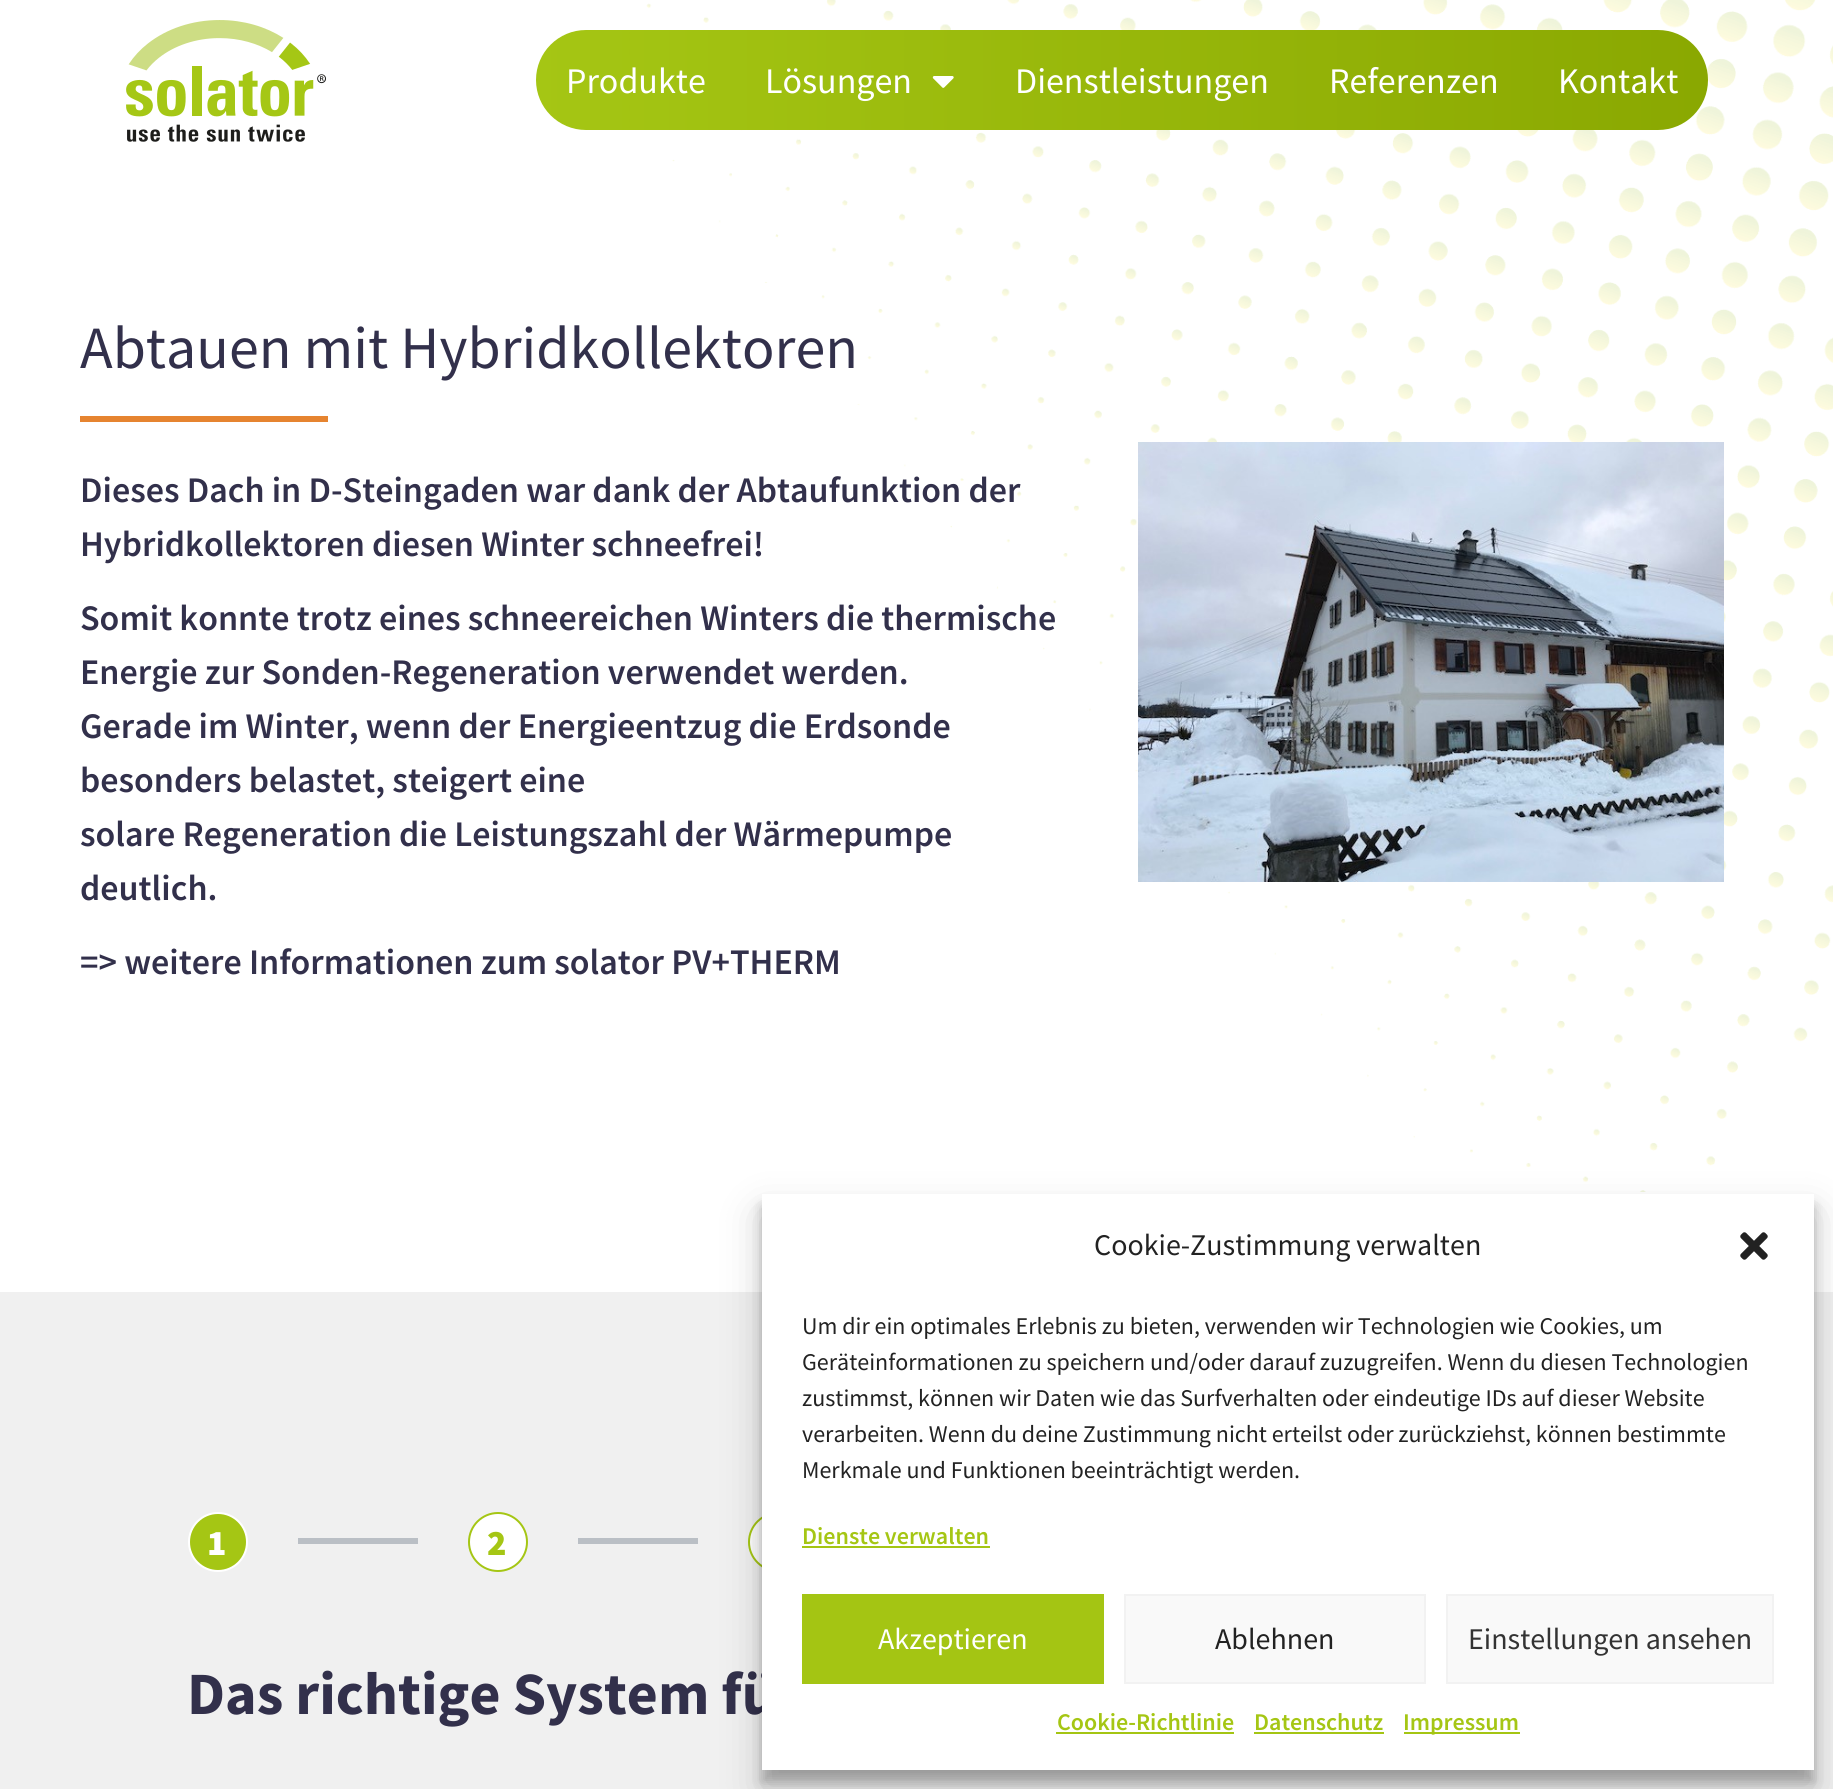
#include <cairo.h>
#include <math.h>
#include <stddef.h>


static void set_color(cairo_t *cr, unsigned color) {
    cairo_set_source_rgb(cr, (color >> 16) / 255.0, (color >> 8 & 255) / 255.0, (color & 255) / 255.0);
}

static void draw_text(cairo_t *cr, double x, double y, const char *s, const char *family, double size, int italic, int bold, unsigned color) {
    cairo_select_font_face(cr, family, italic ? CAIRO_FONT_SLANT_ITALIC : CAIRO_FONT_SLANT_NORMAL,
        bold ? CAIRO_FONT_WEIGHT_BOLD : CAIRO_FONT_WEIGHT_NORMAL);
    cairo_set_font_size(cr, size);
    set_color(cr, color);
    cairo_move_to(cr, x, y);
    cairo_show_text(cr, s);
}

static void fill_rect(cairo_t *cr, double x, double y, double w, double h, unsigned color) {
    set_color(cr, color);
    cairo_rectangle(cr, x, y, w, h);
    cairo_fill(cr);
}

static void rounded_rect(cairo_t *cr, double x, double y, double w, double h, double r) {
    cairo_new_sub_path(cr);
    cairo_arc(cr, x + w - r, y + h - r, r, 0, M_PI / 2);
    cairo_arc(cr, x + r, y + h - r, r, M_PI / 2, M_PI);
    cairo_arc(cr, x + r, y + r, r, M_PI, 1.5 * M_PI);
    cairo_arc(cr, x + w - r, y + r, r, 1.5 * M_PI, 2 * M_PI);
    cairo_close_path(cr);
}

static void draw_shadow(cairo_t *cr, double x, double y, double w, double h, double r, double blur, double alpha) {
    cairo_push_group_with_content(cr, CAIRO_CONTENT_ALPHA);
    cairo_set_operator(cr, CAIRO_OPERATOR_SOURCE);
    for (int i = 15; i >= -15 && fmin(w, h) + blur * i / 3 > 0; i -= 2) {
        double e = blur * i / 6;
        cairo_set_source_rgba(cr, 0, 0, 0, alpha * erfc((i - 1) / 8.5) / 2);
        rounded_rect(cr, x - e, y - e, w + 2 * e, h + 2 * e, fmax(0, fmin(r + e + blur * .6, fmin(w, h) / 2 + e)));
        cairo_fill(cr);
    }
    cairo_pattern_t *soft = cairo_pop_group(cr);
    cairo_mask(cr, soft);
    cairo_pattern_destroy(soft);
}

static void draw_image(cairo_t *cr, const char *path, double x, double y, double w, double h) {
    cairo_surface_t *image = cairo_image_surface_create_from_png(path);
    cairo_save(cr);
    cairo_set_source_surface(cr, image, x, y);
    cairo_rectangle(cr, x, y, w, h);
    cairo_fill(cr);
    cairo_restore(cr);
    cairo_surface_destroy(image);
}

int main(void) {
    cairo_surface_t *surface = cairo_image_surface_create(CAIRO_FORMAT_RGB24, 1833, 1789);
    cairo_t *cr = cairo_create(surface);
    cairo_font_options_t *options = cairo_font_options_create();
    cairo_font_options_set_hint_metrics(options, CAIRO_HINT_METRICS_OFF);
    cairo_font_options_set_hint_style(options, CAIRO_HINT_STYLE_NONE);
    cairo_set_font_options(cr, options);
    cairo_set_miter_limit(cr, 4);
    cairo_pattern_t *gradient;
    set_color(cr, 0xFFFFFF);
    cairo_paint(cr);
    draw_image(cr, "assets/img1.png", 126, 20, 200, 122);
    draw_image(cr, "assets/img3.png", 646, 0, 1187, 1192);
    gradient = cairo_pattern_create_linear(536, 80, 1708, 80);
    cairo_pattern_add_color_stop_rgba(gradient, 0, 0.647, 0.776, 0.078, 1);
    cairo_pattern_add_color_stop_rgba(gradient, 1, 0.541, 0.659, 0.004, 1);
    cairo_set_source(cr, gradient);
    cairo_pattern_destroy(gradient);
    rounded_rect(cr, 536, 30, 1172, 100, 50);
    cairo_fill(cr);
    draw_text(cr, 566, 93, "Produkte", "Source Sans Pro", 36, 0, 0, 0xFFFFFF);
    draw_text(cr, 765, 93, "Lösungen", "Source Sans Pro", 36, 0, 0, 0xFFFFFF);
    draw_image(cr, "assets/img2.png", 932, 76, 22, 12);
    draw_text(cr, 1015, 93, "Dienstleistungen", "Source Sans Pro", 36, 0, 0, 0xFFFFFF);
    draw_text(cr, 1329, 93, "Referenzen", "Source Sans Pro", 36, 0, 0, 0xFFFFFF);
    draw_text(cr, 1558, 93, "Kontakt", "Source Sans Pro", 36, 0, 0, 0xFFFFFF);
    draw_text(cr, 80, 368, "Abtauen mit Hybridkollektoren", "Source Sans Pro", 60, 0, 0, 0x32304B);
    fill_rect(cr, 80, 416, 248, 6, 0xE68430);
    draw_text(cr, 80, 502, "Dieses Dach in D-Steingaden war dank der Abtaufunktion der", "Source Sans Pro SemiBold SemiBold", 36, 0, 0, 0x32304B);
    draw_text(cr, 80, 556, "Hybridkollektoren diesen Winter schneefrei!", "Source Sans Pro SemiBold SemiBold", 36, 0, 0, 0x32304B);
    draw_text(cr, 80, 630, "Somit konnte trotz eines schneereichen Winters die thermische", "Source Sans Pro SemiBold SemiBold", 36, 0, 0, 0x32304B);
    draw_text(cr, 80, 684, "Energie zur Sonden-Regeneration verwendet werden.", "Source Sans Pro SemiBold SemiBold", 36, 0, 0, 0x32304B);
    draw_text(cr, 80, 738, "Gerade im Winter, wenn der Energieentzug die Erdsonde", "Source Sans Pro SemiBold SemiBold", 36, 0, 0, 0x32304B);
    draw_text(cr, 80, 792, "besonders belastet, steigert eine", "Source Sans Pro SemiBold SemiBold", 36, 0, 0, 0x32304B);
    draw_text(cr, 80, 846, "solare Regeneration die Leistungszahl der Wärmepumpe", "Source Sans Pro SemiBold SemiBold", 36, 0, 0, 0x32304B);
    draw_text(cr, 80, 900, "deutlich.", "Source Sans Pro SemiBold SemiBold", 36, 0, 0, 0x32304B);
    draw_text(cr, 80, 974, "=> weitere Informationen zum solator PV+THERM", "Source Sans Pro SemiBold SemiBold", 36, 0, 0, 0x32304B);
    draw_image(cr, "assets/img4.png", 1138, 442, 586, 440);
    fill_rect(cr, 0, 1292, 1833, 497, 0xF0F0F0);
    set_color(cr, 0xA5C614);
    cairo_arc(cr, 218, 1542, 29, 0, 2 * M_PI);
    cairo_fill_preserve(cr);
    set_color(cr, 0xFFFFFF);
    cairo_stroke(cr);
    draw_text(cr, 207, 1555, "1", "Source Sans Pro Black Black", 36, 0, 0, 0xFFFFFF);
    fill_rect(cr, 298, 1538, 120, 6, 0xBABFC5);
    set_color(cr, 0xFFFFFF);
    cairo_new_path(cr);
    cairo_arc(cr, 498, 1542, 29, 0, 2 * M_PI);
    cairo_fill_preserve(cr);
    set_color(cr, 0xA5C614);
    cairo_stroke(cr);
    draw_text(cr, 487, 1555, "2", "Source Sans Pro Black Black", 36, 0, 0, 0xA5C614);
    fill_rect(cr, 578, 1538, 120, 6, 0xBABFC5);
    set_color(cr, 0xFFFFFF);
    cairo_new_path(cr);
    cairo_arc(cr, 778, 1542, 29, 0, 2 * M_PI);
    cairo_fill_preserve(cr);
    set_color(cr, 0xA5C614);
    cairo_stroke(cr);
    draw_text(cr, 187, 1714, "Das richtige System fü", "Source Sans Pro", 60, 0, 1, 0x32304B);
    set_color(cr, 0x000000);
    draw_shadow(cr, 762, 1206, 1052, 576, 0, 6, 0.23);
    draw_shadow(cr, 762, 1214, 1052, 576, 0, 20, 0.19);
    fill_rect(cr, 762, 1194, 1052, 576, 0xFFFFFF);
    draw_text(cr, 1094, 1255, "Cookie-Zustimmung verwalten", "Source Sans Pro", 30, 0, 0, 0x222222);
    draw_image(cr, "assets/img5.png", 1740, 1232, 28, 28);
    draw_text(cr, 802, 1334, "Um dir ein optimales Erlebnis zu bieten, verwenden wir Technologien wie Cookies, um", "Source Sans Pro", 24, 0, 0, 0x222222);
    draw_text(cr, 802, 1370, "Geräteinformationen zu speichern und/oder darauf zuzugreifen. Wenn du diesen Technologien", "Source Sans Pro", 24, 0, 0, 0x222222);
    draw_text(cr, 802, 1406, "zustimmst, können wir Daten wie das Surfverhalten oder eindeutige IDs auf dieser Website", "Source Sans Pro", 24, 0, 0, 0x222222);
    draw_text(cr, 802, 1442, "verarbeiten. Wenn du deine Zustimmung nicht erteilst oder zurückziehst, können bestimmte", "Source Sans Pro", 24, 0, 0, 0x222222);
    draw_text(cr, 802, 1478, "Merkmale und Funktionen beeinträchtigt werden.", "Source Sans Pro", 24, 0, 0, 0x222222);
    draw_text(cr, 802, 1544, "Dienste verwalten", "Source Sans Pro SemiBold SemiBold", 24, 0, 0, 0xA5C614);
    fill_rect(cr, 802, 1546, 188, 2, 0xA4C513);
    fill_rect(cr, 802, 1594, 302, 90, 0xA4C513);
    draw_text(cr, 878, 1649, "Akzeptieren", "Source Sans Pro", 30, 0, 0, 0xFFFFFF);
    set_color(cr, 0xF9F9F9);
    cairo_rectangle(cr, 1125, 1595, 300, 88);
    cairo_fill_preserve(cr);
    set_color(cr, 0xF2F2F2);
    cairo_stroke(cr);
    draw_text(cr, 1215, 1649, "Ablehnen", "Source Sans Pro", 30, 0, 0, 0x222222);
    set_color(cr, 0xF9F9F9);
    cairo_rectangle(cr, 1447, 1595, 326, 88);
    cairo_fill_preserve(cr);
    set_color(cr, 0xF2F2F2);
    cairo_stroke(cr);
    draw_text(cr, 1468, 1649, "Einstellungen ansehen", "Source Sans Pro", 30, 0, 0, 0x333333);
    draw_text(cr, 1057, 1730, "Cookie-Richtlinie", "Source Sans Pro SemiBold SemiBold", 24, 0, 0, 0xA5C614);
    fill_rect(cr, 1056, 1732, 178, 2, 0xA4C513);
    draw_text(cr, 1254, 1730, "Datenschutz", "Source Sans Pro SemiBold SemiBold", 24, 0, 0, 0xA5C614);
    fill_rect(cr, 1254, 1732, 130, 2, 0xA4C513);
    fill_rect(cr, 1404, 1732, 116, 2, 0xA4C513);
    draw_text(cr, 1403, 1730, "Impressum", "Source Sans Pro SemiBold SemiBold", 24, 0, 0, 0xA5C614);
    cairo_surface_write_to_png(surface, "output.png");
    cairo_font_options_destroy(options);
    cairo_destroy(cr);
    cairo_surface_destroy(surface);
    return 0;
}
